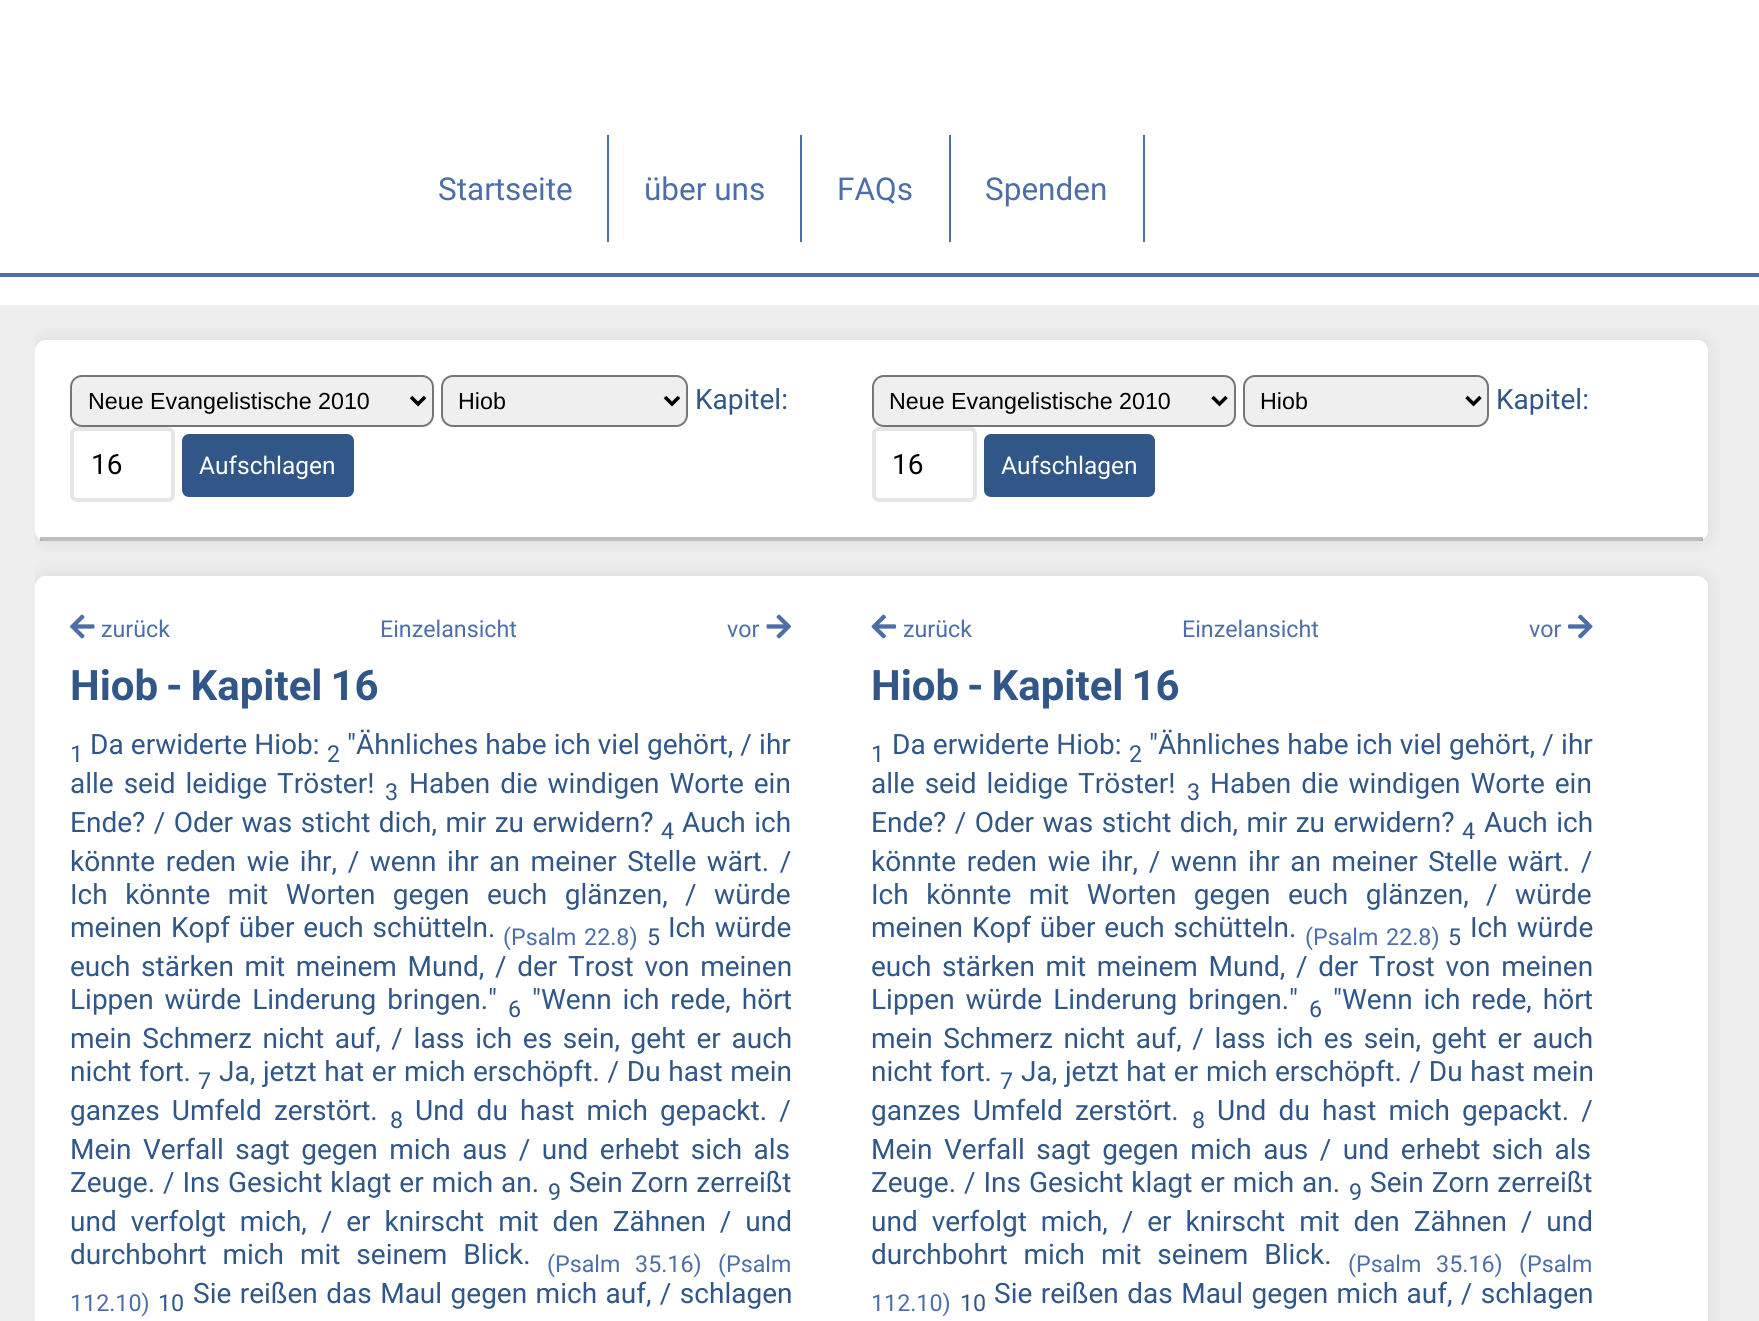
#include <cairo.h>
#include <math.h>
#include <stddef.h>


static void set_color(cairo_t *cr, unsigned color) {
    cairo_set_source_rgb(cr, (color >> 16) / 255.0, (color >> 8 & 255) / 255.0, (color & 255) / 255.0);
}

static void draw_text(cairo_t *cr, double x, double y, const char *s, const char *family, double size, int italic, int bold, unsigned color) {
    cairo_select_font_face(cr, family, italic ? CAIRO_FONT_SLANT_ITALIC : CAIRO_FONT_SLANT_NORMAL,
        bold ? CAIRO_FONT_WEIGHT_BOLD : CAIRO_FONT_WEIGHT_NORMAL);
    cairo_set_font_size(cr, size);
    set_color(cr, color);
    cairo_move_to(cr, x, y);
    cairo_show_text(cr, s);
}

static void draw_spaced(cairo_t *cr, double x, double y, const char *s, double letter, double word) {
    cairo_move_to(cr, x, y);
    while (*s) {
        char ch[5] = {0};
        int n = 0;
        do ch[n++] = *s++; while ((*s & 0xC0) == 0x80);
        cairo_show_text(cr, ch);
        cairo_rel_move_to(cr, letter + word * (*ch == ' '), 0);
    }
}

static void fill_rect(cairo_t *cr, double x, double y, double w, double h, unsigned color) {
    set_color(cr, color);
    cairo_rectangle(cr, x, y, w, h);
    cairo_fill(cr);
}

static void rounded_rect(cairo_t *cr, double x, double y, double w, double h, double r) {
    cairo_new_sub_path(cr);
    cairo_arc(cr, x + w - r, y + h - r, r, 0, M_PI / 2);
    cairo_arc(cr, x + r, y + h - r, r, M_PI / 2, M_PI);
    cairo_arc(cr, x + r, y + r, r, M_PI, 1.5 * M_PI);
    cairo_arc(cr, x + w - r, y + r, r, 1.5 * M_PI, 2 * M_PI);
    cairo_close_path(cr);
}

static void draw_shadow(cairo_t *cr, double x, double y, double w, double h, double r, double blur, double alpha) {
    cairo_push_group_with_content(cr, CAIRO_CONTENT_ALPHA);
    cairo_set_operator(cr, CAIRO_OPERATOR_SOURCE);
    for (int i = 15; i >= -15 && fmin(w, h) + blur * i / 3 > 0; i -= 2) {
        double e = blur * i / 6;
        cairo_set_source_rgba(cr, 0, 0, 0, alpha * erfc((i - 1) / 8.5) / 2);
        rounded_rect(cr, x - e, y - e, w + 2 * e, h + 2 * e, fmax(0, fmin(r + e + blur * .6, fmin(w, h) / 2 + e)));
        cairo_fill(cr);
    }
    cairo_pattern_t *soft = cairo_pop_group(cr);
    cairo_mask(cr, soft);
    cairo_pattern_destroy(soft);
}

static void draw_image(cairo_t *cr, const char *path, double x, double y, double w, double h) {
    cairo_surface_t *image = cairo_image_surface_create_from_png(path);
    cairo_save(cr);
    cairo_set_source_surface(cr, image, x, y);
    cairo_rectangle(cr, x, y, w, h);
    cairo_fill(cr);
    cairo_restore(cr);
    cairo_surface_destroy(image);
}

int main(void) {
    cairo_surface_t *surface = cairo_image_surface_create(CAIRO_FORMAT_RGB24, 1759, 1321);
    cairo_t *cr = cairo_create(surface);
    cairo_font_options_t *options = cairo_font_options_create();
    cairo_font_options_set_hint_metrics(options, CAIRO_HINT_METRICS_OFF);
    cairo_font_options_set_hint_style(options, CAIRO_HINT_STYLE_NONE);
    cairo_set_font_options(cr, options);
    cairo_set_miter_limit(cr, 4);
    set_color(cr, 0xFFFFFF);
    cairo_paint(cr);
    fill_rect(cr, 0, 273, 1759, 4, 0x4D6EA8);
    fill_rect(cr, 607, 135, 2, 107, 0x4D6EA8);
    draw_text(cr, 438, 200, "Startseite", "Roboto", 31.5, 0, 0, 0x4D6EA8);
    fill_rect(cr, 800, 135, 2, 107, 0x4D6EA8);
    draw_text(cr, 644, 200, "über uns", "Roboto", 31.5, 0, 0, 0x4D6EA8);
    fill_rect(cr, 949, 135, 2, 107, 0x4D6EA8);
    draw_text(cr, 837, 200, "FAQs", "Roboto", 31.5, 0, 0, 0x4D6EA8);
    fill_rect(cr, 1143, 135, 2, 107, 0x4D6EA8);
    draw_text(cr, 985, 200, "Spenden", "Roboto", 31.5, 0, 0, 0x4D6EA8);
    fill_rect(cr, 0, 305, 1759, 1016, 0xEEEEEE);
    cairo_save(cr);
    cairo_rectangle(cr, 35, 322, 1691, 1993);
    cairo_clip(cr);
    set_color(cr, 0x000000);
    draw_shadow(cr, 35, 340, 1673, 201, 11, 9, 0.1);
    cairo_restore(cr);
    set_color(cr, 0xFFFFFF);
    rounded_rect(cr, 35, 340, 1673, 201, 11);
    cairo_fill(cr);
    cairo_set_source_rgba(cr, 0, 0, 0, 0.25);
    cairo_rectangle(cr, 40, 537, 1663, 4);
    cairo_fill(cr);
    set_color(cr, 0xEFEFEF);
    rounded_rect(cr, 71, 376, 362, 50, 11);
    cairo_fill_preserve(cr);
    set_color(cr, 0x767676);
    cairo_stroke(cr);
    cairo_new_path(cr);
    cairo_move_to(cr, 411, 397);
    cairo_line_to(cr, 418, 404);
    cairo_line_to(cr, 425, 397);
    set_color(cr, 0x000000);
    cairo_set_line_width(cr, 3.5);
    cairo_stroke(cr);
    draw_text(cr, 88, 409, "Neue Evangelistische 2010", "Liberation Sans", 23.25, 0, 0, 0x000000);
    set_color(cr, 0xEFEFEF);
    rounded_rect(cr, 442, 376, 245, 50, 11);
    cairo_fill_preserve(cr);
    set_color(cr, 0x767676);
    cairo_set_line_width(cr, 2);
    cairo_stroke(cr);
    cairo_new_path(cr);
    cairo_move_to(cr, 665, 397);
    cairo_line_to(cr, 672, 404);
    cairo_line_to(cr, 679, 397);
    set_color(cr, 0x000000);
    cairo_set_line_width(cr, 3.5);
    cairo_stroke(cr);
    draw_text(cr, 458, 409, "Hiob", "Liberation Sans", 23.25, 0, 0, 0x000000);
    draw_text(cr, 695, 409, "Kapitel:", "Roboto", 28, 0, 0, 0x315788);
    rounded_rect(cr, 72, 429, 101, 71, 5);
    set_color(cr, 0xE6E6E6);
    cairo_set_line_width(cr, 4);
    cairo_stroke(cr);
    draw_text(cr, 91, 474, "16", "Roboto", 28, 0, 0, 0x000000);
    set_color(cr, 0x315788);
    rounded_rect(cr, 182, 434, 172, 63, 7);
    cairo_fill(cr);
    draw_text(cr, 199, 474, "Aufschlagen", "Roboto", 24.5, 0, 0, 0xFFFFFF);
    set_color(cr, 0xEFEFEF);
    rounded_rect(cr, 873, 376, 362, 50, 11);
    cairo_fill_preserve(cr);
    set_color(cr, 0x767676);
    cairo_set_line_width(cr, 2);
    cairo_stroke(cr);
    cairo_new_path(cr);
    cairo_move_to(cr, 1212.5, 397);
    cairo_line_to(cr, 1219.5, 404);
    cairo_line_to(cr, 1226.5, 397);
    set_color(cr, 0x000000);
    cairo_set_line_width(cr, 3.5);
    cairo_stroke(cr);
    draw_text(cr, 889, 409, "Neue Evangelistische 2010", "Liberation Sans", 23.25, 0, 0, 0x000000);
    set_color(cr, 0xEFEFEF);
    rounded_rect(cr, 1244, 376, 244, 50, 11);
    cairo_fill_preserve(cr);
    set_color(cr, 0x767676);
    cairo_set_line_width(cr, 2);
    cairo_stroke(cr);
    cairo_new_path(cr);
    cairo_move_to(cr, 1466.5, 397);
    cairo_line_to(cr, 1473.5, 404);
    cairo_line_to(cr, 1480.5, 397);
    set_color(cr, 0x000000);
    cairo_set_line_width(cr, 3.5);
    cairo_stroke(cr);
    draw_text(cr, 1260, 409, "Hiob", "Liberation Sans", 23.25, 0, 0, 0x000000);
    draw_text(cr, 1496, 409, "Kapitel:", "Roboto", 28, 0, 0, 0x315788);
    rounded_rect(cr, 874, 429, 101, 71, 5);
    set_color(cr, 0xE6E6E6);
    cairo_set_line_width(cr, 4);
    cairo_stroke(cr);
    draw_text(cr, 892, 474, "16", "Roboto", 28, 0, 0, 0x000000);
    set_color(cr, 0x315788);
    rounded_rect(cr, 984, 434, 171, 63, 7);
    cairo_fill(cr);
    draw_text(cr, 1001, 474, "Aufschlagen", "Roboto", 24.5, 0, 0, 0xFFFFFF);
    cairo_save(cr);
    cairo_rectangle(cr, 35, 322, 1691, 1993);
    cairo_clip(cr);
    set_color(cr, 0x000000);
    draw_shadow(cr, 35, 576, 1673, 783, 11, 9, 0.1);
    cairo_restore(cr);
    rounded_rect(cr, 35, 576, 1673, 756, 11);
    cairo_fill(cr);
    draw_image(cr, "assets/img1.png", 70, 614, 25, 25);
    draw_text(cr, 101, 637, "zurück", "Roboto", 23.25, 0, 0, 0x4D6EA8);
    draw_text(cr, 380, 637, "Einzelansicht", "Roboto", 23.25, 0, 0, 0x4D6EA8);
    draw_text(cr, 727, 637, "vor", "Roboto", 23.25, 0, 0, 0x4D6EA8);
    draw_image(cr, "assets/img2.png", 766, 614, 25, 25);
    cairo_select_font_face(cr, "Roboto", CAIRO_FONT_SLANT_NORMAL, CAIRO_FONT_WEIGHT_BOLD);
    cairo_set_font_size(cr, 42);
    set_color(cr, 0x315788);
    draw_spaced(cr, 70, 700, "Hiob - Kapitel 16", 0, -2.5);
    draw_text(cr, 70, 762, "1", "Roboto", 23.25, 0, 0, 0x315788);
    cairo_set_font_size(cr, 28);
    draw_spaced(cr, 90, 754, "Da erwiderte Hiob:", 0, 0.25);
    draw_text(cr, 327, 762, "2", "Roboto", 23.25, 0, 0, 0x315788);
    cairo_set_font_size(cr, 28);
    draw_spaced(cr, 347, 754, "\"Ähnliches habe ich viel gehört, / ihr", 0, 0.25);
    draw_spaced(cr, 70, 793, "alle seid leidige Tröster!", 0, 3);
    draw_text(cr, 385, 800, "3", "Roboto", 23.25, 0, 0, 0x315788);
    cairo_set_font_size(cr, 28);
    draw_spaced(cr, 409, 793, "Haben die windigen Worte ein", 0, 3);
    draw_spaced(cr, 70, 832, "Ende? / Oder was sticht dich, mir zu erwidern?", 0, 1.5);
    draw_text(cr, 661, 839, "4", "Roboto", 23.25, 0, 0, 0x315788);
    cairo_set_font_size(cr, 28);
    draw_spaced(cr, 682, 832, "Auch ich", 0, 1.5);
    draw_spaced(cr, 70, 871, "könnte reden wie ihr, / wenn ihr an meiner Stelle wärt. /", 0, 3.6);
    draw_spaced(cr, 70, 904, "Ich könnte mit Worten gegen euch glänzen, / würde", 0, 10.5);
    draw_spaced(cr, 70, 937, "meinen Kopf über euch schütteln.", 0, 2);
    cairo_set_font_size(cr, 23.25);
    set_color(cr, 0x4D6EA8);
    draw_spaced(cr, 503, 945, "(Psalm 22.8)", 0, 2);
    draw_text(cr, 647, 945, "5", "Roboto", 23.25, 0, 0, 0x315788);
    cairo_set_font_size(cr, 28);
    draw_spaced(cr, 668, 937, "Ich würde", 0, 2);
    draw_spaced(cr, 70, 976, "euch stärken mit meinem Mund, / der Trost von meinen", 0, 3.75);
    draw_spaced(cr, 70, 1009, "Lippen würde Linderung bringen.\"", 0, 4);
    draw_text(cr, 508, 1017, "6", "Roboto", 23.25, 0, 0, 0x315788);
    cairo_set_font_size(cr, 28);
    draw_spaced(cr, 532, 1009, "\"Wenn ich rede, hört", 0, 4);
    draw_spaced(cr, 70, 1048, "mein Schmerz nicht auf, / lass ich es sein, geht er auch", 0, 3.75);
    draw_spaced(cr, 70, 1081, "nicht fort.", 0, 0.75);
    draw_text(cr, 198, 1089, "7", "Roboto", 23.25, 0, 0, 0x315788);
    cairo_set_font_size(cr, 28);
    draw_spaced(cr, 219, 1081, "Ja, jetzt hat er mich erschöpft. / Du hast mein", 0, 0.75);
    draw_spaced(cr, 70, 1120, "ganzes Umfeld zerstört.", 0, 5.25);
    draw_text(cr, 390, 1128, "8", "Roboto", 23.25, 0, 0, 0x315788);
    cairo_set_font_size(cr, 28);
    draw_spaced(cr, 415, 1120, "Und du hast mich gepackt. /", 0, 5.25);
    draw_spaced(cr, 70, 1159, "Mein Verfall sagt gegen mich aus / und erhebt sich als", 0, 4.5);
    draw_spaced(cr, 70, 1192, "Zeuge. / Ins Gesicht klagt er mich an.", 0, 1);
    draw_text(cr, 548, 1200, "9", "Roboto", 23.25, 0, 0, 0x315788);
    cairo_set_font_size(cr, 28);
    draw_spaced(cr, 569, 1192, "Sein Zorn zerreißt", 0, 1);
    draw_spaced(cr, 70, 1231, "und verfolgt mich, / er knirscht mit den Zähnen / und", 0, 7);
    draw_spaced(cr, 70, 1264, "durchbohrt mich mit seinem Blick.", 0, 9);
    cairo_set_font_size(cr, 23.25);
    set_color(cr, 0x4D6EA8);
    draw_spaced(cr, 547, 1272, "(Psalm 35.16)", 0, 9);
    draw_text(cr, 718, 1272, "(Psalm", "Roboto", 23.25, 0, 0, 0x4D6EA8);
    draw_text(cr, 70, 1311, "112.10)", "Roboto", 23.25, 0, 0, 0x4D6EA8);
    draw_text(cr, 158, 1311, "10", "Roboto", 23.25, 0, 0, 0x315788);
    cairo_set_font_size(cr, 28);
    draw_spaced(cr, 193, 1303, "Sie reißen das Maul gegen mich auf, / schlagen", 0, 1.5);
    draw_image(cr, "assets/img3.png", 871, 614, 26, 25);
    draw_text(cr, 903, 637, "zurück", "Roboto", 23.25, 0, 0, 0x4D6EA8);
    draw_text(cr, 1182, 637, "Einzelansicht", "Roboto", 23.25, 0, 0, 0x4D6EA8);
    draw_text(cr, 1529, 637, "vor", "Roboto", 23.25, 0, 0, 0x4D6EA8);
    draw_image(cr, "assets/img4.png", 1568, 614, 25, 25);
    cairo_select_font_face(cr, "Roboto", CAIRO_FONT_SLANT_NORMAL, CAIRO_FONT_WEIGHT_BOLD);
    cairo_set_font_size(cr, 42);
    set_color(cr, 0x315788);
    draw_spaced(cr, 871, 700, "Hiob - Kapitel 16", 0, -2.5);
    draw_text(cr, 871, 762, "1", "Roboto", 23.25, 0, 0, 0x315788);
    cairo_set_font_size(cr, 28);
    draw_spaced(cr, 892, 754, "Da erwiderte Hiob:", 0, 0.25);
    draw_text(cr, 1129, 762, "2", "Roboto", 23.25, 0, 0, 0x315788);
    cairo_set_font_size(cr, 28);
    draw_spaced(cr, 1149, 754, "\"Ähnliches habe ich viel gehört, / ihr", 0, 0.25);
    draw_spaced(cr, 871, 793, "alle seid leidige Tröster!", 0, 3);
    draw_text(cr, 1187, 800, "3", "Roboto", 23.25, 0, 0, 0x315788);
    cairo_set_font_size(cr, 28);
    draw_spaced(cr, 1210, 793, "Haben die windigen Worte ein", 0, 3);
    draw_spaced(cr, 871, 832, "Ende? / Oder was sticht dich, mir zu erwidern?", 0, 1.5);
    draw_text(cr, 1462, 839, "4", "Roboto", 23.25, 0, 0, 0x315788);
    cairo_set_font_size(cr, 28);
    draw_spaced(cr, 1484, 832, "Auch ich", 0, 1.5);
    draw_spaced(cr, 871, 871, "könnte reden wie ihr, / wenn ihr an meiner Stelle wärt. /", 0, 3.6);
    draw_spaced(cr, 871, 904, "Ich könnte mit Worten gegen euch glänzen, / würde", 0, 10.5);
    draw_spaced(cr, 871, 937, "meinen Kopf über euch schütteln.", 0, 2);
    cairo_set_font_size(cr, 23.25);
    set_color(cr, 0x4D6EA8);
    draw_spaced(cr, 1305, 945, "(Psalm 22.8)", 0, 2);
    draw_text(cr, 1448, 945, "5", "Roboto", 23.25, 0, 0, 0x315788);
    cairo_set_font_size(cr, 28);
    draw_spaced(cr, 1470, 937, "Ich würde", 0, 2);
    draw_spaced(cr, 871, 976, "euch stärken mit meinem Mund, / der Trost von meinen", 0, 3.75);
    draw_spaced(cr, 871, 1009, "Lippen würde Linderung bringen.\"", 0, 4);
    draw_text(cr, 1309, 1017, "6", "Roboto", 23.25, 0, 0, 0x315788);
    cairo_set_font_size(cr, 28);
    draw_spaced(cr, 1333, 1009, "\"Wenn ich rede, hört", 0, 4);
    draw_spaced(cr, 871, 1048, "mein Schmerz nicht auf, / lass ich es sein, geht er auch", 0, 3.75);
    draw_spaced(cr, 871, 1081, "nicht fort.", 0, 0.75);
    draw_text(cr, 1000, 1089, "7", "Roboto", 23.25, 0, 0, 0x315788);
    cairo_set_font_size(cr, 28);
    draw_spaced(cr, 1021, 1081, "Ja, jetzt hat er mich erschöpft. / Du hast mein", 0, 0.75);
    draw_spaced(cr, 871, 1120, "ganzes Umfeld zerstört.", 0, 5.25);
    draw_text(cr, 1192, 1128, "8", "Roboto", 23.25, 0, 0, 0x315788);
    cairo_set_font_size(cr, 28);
    draw_spaced(cr, 1217, 1120, "Und du hast mich gepackt. /", 0, 5.25);
    draw_spaced(cr, 871, 1159, "Mein Verfall sagt gegen mich aus / und erhebt sich als", 0, 4.5);
    draw_spaced(cr, 871, 1192, "Zeuge. / Ins Gesicht klagt er mich an.", 0, 1);
    draw_text(cr, 1349, 1200, "9", "Roboto", 23.25, 0, 0, 0x315788);
    cairo_set_font_size(cr, 28);
    draw_spaced(cr, 1370, 1192, "Sein Zorn zerreißt", 0, 1);
    draw_spaced(cr, 871, 1231, "und verfolgt mich, / er knirscht mit den Zähnen / und", 0, 7);
    draw_spaced(cr, 871, 1264, "durchbohrt mich mit seinem Blick.", 0, 9);
    cairo_set_font_size(cr, 23.25);
    set_color(cr, 0x4D6EA8);
    draw_spaced(cr, 1348, 1272, "(Psalm 35.16)", 0, 9);
    draw_text(cr, 1519, 1272, "(Psalm", "Roboto", 23.25, 0, 0, 0x4D6EA8);
    draw_text(cr, 871, 1311, "112.10)", "Roboto", 23.25, 0, 0, 0x4D6EA8);
    draw_text(cr, 960, 1311, "10", "Roboto", 23.25, 0, 0, 0x315788);
    cairo_set_font_size(cr, 28);
    draw_spaced(cr, 994, 1303, "Sie reißen das Maul gegen mich auf, / schlagen", 0, 1.5);
    cairo_surface_write_to_png(surface, "output.png");
    cairo_font_options_destroy(options);
    cairo_destroy(cr);
    cairo_surface_destroy(surface);
    return 0;
}
